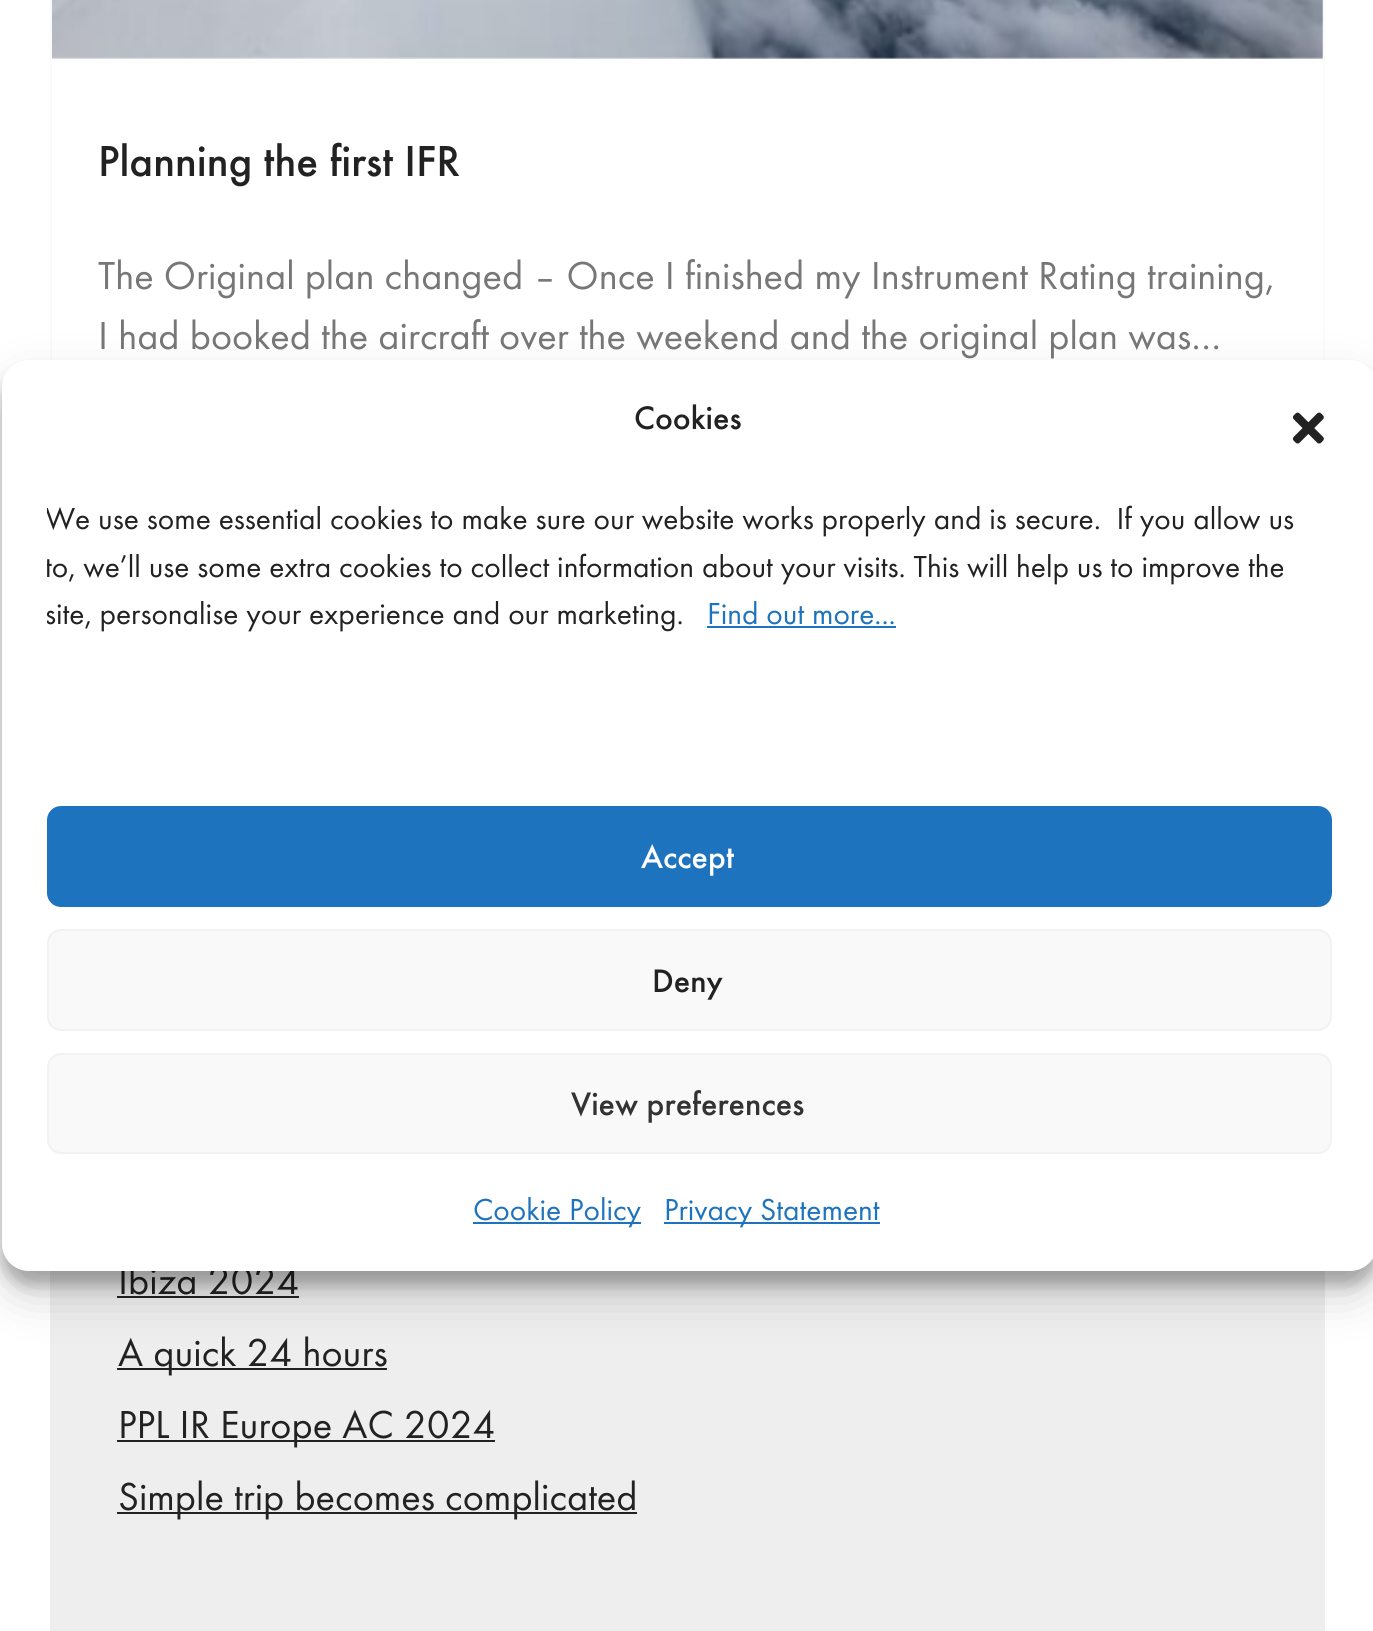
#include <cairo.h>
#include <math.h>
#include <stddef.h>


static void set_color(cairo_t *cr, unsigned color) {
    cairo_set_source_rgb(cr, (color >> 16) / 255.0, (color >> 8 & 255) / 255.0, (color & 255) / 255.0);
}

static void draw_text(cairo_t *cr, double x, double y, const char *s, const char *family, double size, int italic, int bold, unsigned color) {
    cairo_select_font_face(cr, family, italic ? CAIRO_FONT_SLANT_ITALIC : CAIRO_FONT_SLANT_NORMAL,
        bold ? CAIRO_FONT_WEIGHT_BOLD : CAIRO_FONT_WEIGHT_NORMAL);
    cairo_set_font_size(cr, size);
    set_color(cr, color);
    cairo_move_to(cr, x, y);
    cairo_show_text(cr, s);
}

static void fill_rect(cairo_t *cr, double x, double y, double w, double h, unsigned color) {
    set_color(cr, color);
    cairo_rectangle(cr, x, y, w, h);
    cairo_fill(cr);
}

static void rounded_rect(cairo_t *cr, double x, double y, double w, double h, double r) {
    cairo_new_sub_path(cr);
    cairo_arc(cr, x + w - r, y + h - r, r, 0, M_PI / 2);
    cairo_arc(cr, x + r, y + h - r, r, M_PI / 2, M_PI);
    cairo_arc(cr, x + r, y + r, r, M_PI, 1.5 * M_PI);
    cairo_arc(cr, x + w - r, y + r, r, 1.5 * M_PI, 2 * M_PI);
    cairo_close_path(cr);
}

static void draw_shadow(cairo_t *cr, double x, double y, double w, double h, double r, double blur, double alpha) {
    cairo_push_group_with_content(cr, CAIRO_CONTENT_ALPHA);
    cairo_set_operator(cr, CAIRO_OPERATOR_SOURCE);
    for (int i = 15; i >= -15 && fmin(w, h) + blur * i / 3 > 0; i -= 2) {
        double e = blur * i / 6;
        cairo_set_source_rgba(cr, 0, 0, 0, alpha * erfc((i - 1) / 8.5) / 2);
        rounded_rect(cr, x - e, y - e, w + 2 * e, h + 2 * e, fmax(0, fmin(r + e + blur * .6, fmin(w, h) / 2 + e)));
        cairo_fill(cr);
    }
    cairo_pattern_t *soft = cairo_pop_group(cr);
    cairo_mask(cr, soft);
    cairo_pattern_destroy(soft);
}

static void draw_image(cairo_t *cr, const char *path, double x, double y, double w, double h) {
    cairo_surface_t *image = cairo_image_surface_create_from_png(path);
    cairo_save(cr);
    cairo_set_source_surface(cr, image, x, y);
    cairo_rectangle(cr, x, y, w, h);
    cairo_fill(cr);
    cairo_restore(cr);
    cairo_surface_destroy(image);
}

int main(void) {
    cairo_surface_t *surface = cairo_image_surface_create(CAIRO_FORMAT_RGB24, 1373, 1631);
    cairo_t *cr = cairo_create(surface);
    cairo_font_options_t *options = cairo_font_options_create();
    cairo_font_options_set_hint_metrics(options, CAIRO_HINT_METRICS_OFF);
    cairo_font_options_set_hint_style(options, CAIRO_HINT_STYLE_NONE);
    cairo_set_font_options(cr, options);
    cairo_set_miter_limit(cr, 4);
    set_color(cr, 0xFFFFFF);
    cairo_paint(cr);
    cairo_rectangle(cr, 51, -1, 1273, 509);
    set_color(cr, 0xFAFAFA);
    cairo_stroke(cr);
    draw_image(cr, "assets/img1.png", 52, 0, 1271, 59);
    draw_text(cr, 98, 176, "Planning the first IFR", "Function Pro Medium", 45, 0, 0, 0x222222);
    draw_text(cr, 98, 289, "The Original plan changed – Once I finished my Instrument Rating training,", "Function Pro", 40.5, 0, 0, 0x777777);
    draw_text(cr, 98, 349, "I had booked the aircraft over the weekend and the original plan was…", "Function Pro", 40.5, 0, 0, 0x777777);
    fill_rect(cr, 50, 1271, 1275, 360, 0xEEEEEE);
    draw_text(cr, 118, 1294, "Ibiza 2024", "Function Pro", 40.5, 0, 0, 0x222222);
    fill_rect(cr, 117, 1296, 182, 2, 0x222222);
    fill_rect(cr, 117, 1368, 270, 2, 0x222222);
    draw_text(cr, 118, 1366, "A quick 24 hours", "Function Pro", 40.5, 0, 0, 0x222222);
    fill_rect(cr, 117, 1440, 378, 2, 0x222222);
    draw_text(cr, 118, 1438, "PPL IR Europe AC 2024", "Function Pro", 40.5, 0, 0, 0x222222);
    fill_rect(cr, 117, 1512, 520, 2, 0x222222);
    draw_text(cr, 118, 1510, "Simple trip becomes complicated", "Function Pro", 40.5, 0, 0, 0x222222);
    set_color(cr, 0x000000);
    draw_shadow(cr, 2, 374, 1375, 911, 27, 7, 0.23);
    draw_shadow(cr, 2, 383, 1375, 911, 27, 22.5, 0.19);
    set_color(cr, 0xFFFFFF);
    rounded_rect(cr, 2, 360, 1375, 911, 27);
    cairo_fill(cr);
    draw_text(cr, 634, 429, "Cookies", "Function Pro Medium", 33.75, 0, 0, 0x222222);
    draw_image(cr, "assets/img2.png", 1292, 412, 32, 32);
    cairo_save(cr);
    cairo_rectangle(cr, 47, 495, 1285, 248);
    cairo_clip(cr);
    draw_text(cr, 45, 529, "We use some essential cookies to make sure our website works properly and is secure.  If you allow us", "Function Pro", 31.5, 0, 0, 0x222222);
    draw_text(cr, 45, 577, "to, we’ll use some extra cookies to collect information about your visits. This will help us to improve the", "Function Pro", 31.5, 0, 0, 0x222222);
    draw_text(cr, 45, 624, "site, personalise your experience and our marketing.", "Function Pro", 31.5, 0, 0, 0x222222);
    cairo_restore(cr);
    draw_text(cr, 707, 624, "Find out more...", "Function Pro", 31.5, 0, 0, 0x1E73BE);
    fill_rect(cr, 707, 626, 189, 2, 0x1E73BE);
    rounded_rect(cr, 48, 807, 1283, 99, 13);
    cairo_fill_preserve(cr);
    cairo_stroke(cr);
    draw_text(cr, 641, 868, "Accept", "Function Pro Medium", 33.75, 0, 0, 0xFFFFFF);
    set_color(cr, 0xF9F9F9);
    rounded_rect(cr, 48, 930, 1283, 100, 13);
    cairo_fill_preserve(cr);
    set_color(cr, 0xF2F2F2);
    cairo_stroke(cr);
    draw_text(cr, 652, 992, "Deny", "Function Pro Medium", 33.75, 0, 0, 0x222222);
    set_color(cr, 0xF9F9F9);
    rounded_rect(cr, 48, 1054, 1283, 99, 13);
    cairo_fill_preserve(cr);
    set_color(cr, 0xF2F2F2);
    cairo_stroke(cr);
    draw_text(cr, 571, 1115, "View preferences", "Function Pro Medium", 33.75, 0, 0, 0x333333);
    fill_rect(cr, 473, 1222, 168, 2, 0x1E73BE);
    draw_text(cr, 473, 1220, "Cookie Policy", "Function Pro", 31.5, 0, 0, 0x1E73BE);
    fill_rect(cr, 664, 1222, 216, 2, 0x1E73BE);
    draw_text(cr, 664, 1220, "Privacy Statement", "Function Pro", 31.5, 0, 0, 0x1E73BE);
    cairo_surface_write_to_png(surface, "output.png");
    cairo_font_options_destroy(options);
    cairo_destroy(cr);
    cairo_surface_destroy(surface);
    return 0;
}
